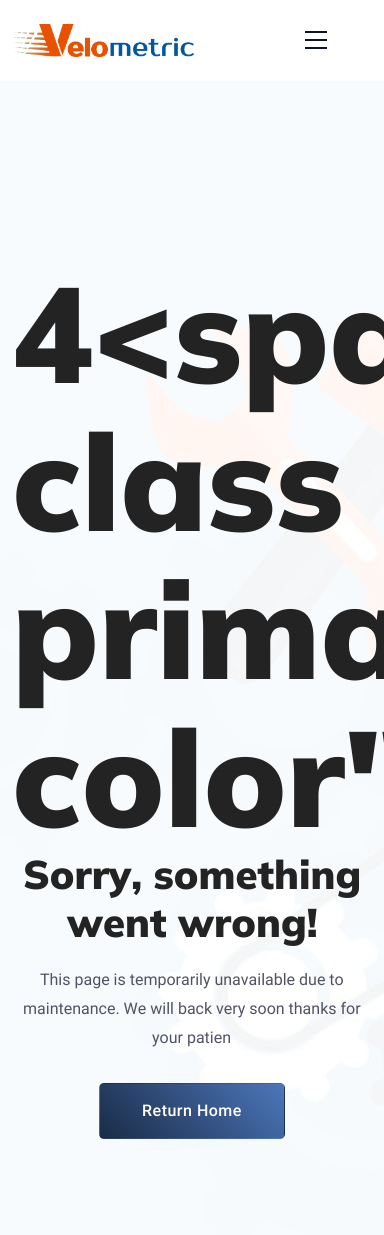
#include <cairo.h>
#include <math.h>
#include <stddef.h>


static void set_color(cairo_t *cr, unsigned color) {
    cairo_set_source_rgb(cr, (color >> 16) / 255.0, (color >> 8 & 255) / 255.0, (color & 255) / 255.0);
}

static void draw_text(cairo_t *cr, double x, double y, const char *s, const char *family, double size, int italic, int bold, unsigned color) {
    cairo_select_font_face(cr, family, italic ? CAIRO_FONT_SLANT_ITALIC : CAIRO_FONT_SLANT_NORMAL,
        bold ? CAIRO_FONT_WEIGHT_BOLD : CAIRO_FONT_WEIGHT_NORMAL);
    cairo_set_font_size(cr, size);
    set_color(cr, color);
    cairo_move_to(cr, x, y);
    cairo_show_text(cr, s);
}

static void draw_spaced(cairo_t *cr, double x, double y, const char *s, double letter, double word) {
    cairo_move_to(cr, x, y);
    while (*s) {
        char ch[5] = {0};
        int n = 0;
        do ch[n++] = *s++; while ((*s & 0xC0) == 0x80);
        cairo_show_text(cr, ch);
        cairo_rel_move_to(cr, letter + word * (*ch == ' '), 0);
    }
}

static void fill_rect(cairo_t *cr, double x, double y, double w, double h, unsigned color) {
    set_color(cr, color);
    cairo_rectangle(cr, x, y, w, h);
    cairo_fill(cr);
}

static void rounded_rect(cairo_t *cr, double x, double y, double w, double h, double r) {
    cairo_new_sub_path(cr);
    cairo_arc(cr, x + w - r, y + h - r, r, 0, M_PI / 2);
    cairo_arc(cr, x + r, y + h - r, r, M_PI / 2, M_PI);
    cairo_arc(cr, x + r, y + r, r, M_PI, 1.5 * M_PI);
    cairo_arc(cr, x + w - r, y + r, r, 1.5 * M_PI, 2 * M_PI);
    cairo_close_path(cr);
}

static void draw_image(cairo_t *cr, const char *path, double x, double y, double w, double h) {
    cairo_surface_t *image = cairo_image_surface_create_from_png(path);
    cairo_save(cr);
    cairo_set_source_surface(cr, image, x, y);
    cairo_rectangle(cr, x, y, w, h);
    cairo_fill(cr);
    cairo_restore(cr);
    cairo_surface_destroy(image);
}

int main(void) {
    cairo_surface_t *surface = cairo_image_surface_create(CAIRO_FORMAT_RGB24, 384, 1235);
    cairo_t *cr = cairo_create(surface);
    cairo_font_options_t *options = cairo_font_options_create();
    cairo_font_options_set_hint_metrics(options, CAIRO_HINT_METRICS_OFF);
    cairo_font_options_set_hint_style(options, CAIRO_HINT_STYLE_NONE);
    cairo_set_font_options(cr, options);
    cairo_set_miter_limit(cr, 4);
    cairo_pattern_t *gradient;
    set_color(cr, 0xFFFFFF);
    cairo_paint(cr);
    draw_image(cr, "assets/img1.png", 12, 24, 182, 33);
    fill_rect(cr, 305, 31, 22, 2, 0x0D1525);
    fill_rect(cr, 305, 39, 22, 2, 0x0D1525);
    fill_rect(cr, 305, 47, 22, 2, 0x0D1525);
    draw_image(cr, "assets/img2.png", 0, 81, 384, 1154);
    draw_text(cr, 12, 383, "4<spa", "Mulish Black", 135, 0, 0, 0x232323);
    draw_text(cr, 12, 531, "class", "Mulish Black", 135, 0, 0, 0x232323);
    draw_text(cr, 12, 679, "prima", "Mulish Black", 135, 0, 0, 0x232323);
    draw_text(cr, 12, 827, "color\"", "Mulish Black", 135, 0, 0, 0x232323);
    draw_text(cr, 23, 889, "Sorry, something", "Mulish Black", 40, 0, 0, 0x232323);
    draw_text(cr, 67, 937, "went wrong!", "Mulish Black", 40, 0, 0, 0x232323);
    draw_text(cr, 40, 985, "This page is temporarily unavailable due to", "Roboto", 16, 0, 0, 0x515264);
    draw_text(cr, 23, 1014, "maintenance. We will back very soon thanks for", "Roboto", 16, 0, 0, 0x515264);
    draw_text(cr, 152, 1043, "your patien", "Roboto", 16, 0, 0, 0x515264);
    cairo_save(cr);
    rounded_rect(cr, 99, 1083, 186, 56, 5);
    cairo_clip(cr);
    gradient = cairo_pattern_create_linear(133, 1117, 252, 998);
    cairo_pattern_add_color_stop_rgba(gradient, 0, 0.102, 0.169, 0.275, 1);
    cairo_pattern_add_color_stop_rgba(gradient, 1, 0.298, 0.467, 0.733, 1);
    cairo_set_source(cr, gradient);
    cairo_pattern_destroy(gradient);
    cairo_rectangle(cr, 100, 1083, 184, 1);
    cairo_fill(cr);
    gradient = cairo_pattern_create_linear(-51, 1171, 68, 1052);
    cairo_pattern_add_color_stop_rgba(gradient, 0, 0.102, 0.169, 0.275, 1);
    cairo_pattern_add_color_stop_rgba(gradient, 1, 0.298, 0.467, 0.733, 1);
    cairo_set_source(cr, gradient);
    cairo_pattern_destroy(gradient);
    cairo_rectangle(cr, 99, 1084, 1, 54);
    cairo_fill(cr);
    gradient = cairo_pattern_create_linear(133, 1171, 252, 1052);
    cairo_pattern_add_color_stop_rgba(gradient, 0, 0.102, 0.169, 0.275, 1);
    cairo_pattern_add_color_stop_rgba(gradient, 1, 0.298, 0.467, 0.733, 1);
    cairo_set_source(cr, gradient);
    cairo_pattern_destroy(gradient);
    cairo_rectangle(cr, 100, 1084, 184, 54);
    cairo_fill(cr);
    gradient = cairo_pattern_create_linear(317, 1171, 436, 1052);
    cairo_pattern_add_color_stop_rgba(gradient, 0, 0.102, 0.169, 0.275, 1);
    cairo_pattern_add_color_stop_rgba(gradient, 1, 0.298, 0.467, 0.733, 1);
    cairo_set_source(cr, gradient);
    cairo_pattern_destroy(gradient);
    cairo_rectangle(cr, 284, 1084, 1, 54);
    cairo_fill(cr);
    gradient = cairo_pattern_create_linear(133, 1225, 252, 1106);
    cairo_pattern_add_color_stop_rgba(gradient, 0, 0.102, 0.169, 0.275, 1);
    cairo_pattern_add_color_stop_rgba(gradient, 1, 0.298, 0.467, 0.733, 1);
    cairo_set_source(cr, gradient);
    cairo_pattern_destroy(gradient);
    cairo_rectangle(cr, 100, 1138, 184, 1);
    cairo_fill(cr);
    cairo_restore(cr);
    cairo_select_font_face(cr, "Roboto Medium", CAIRO_FONT_SLANT_NORMAL, CAIRO_FONT_WEIGHT_NORMAL);
    set_color(cr, 0xFFFFFF);
    draw_spaced(cr, 142, 1116, "Return Home", 0.5, 0);
    cairo_surface_write_to_png(surface, "output.png");
    cairo_font_options_destroy(options);
    cairo_destroy(cr);
    cairo_surface_destroy(surface);
    return 0;
}
